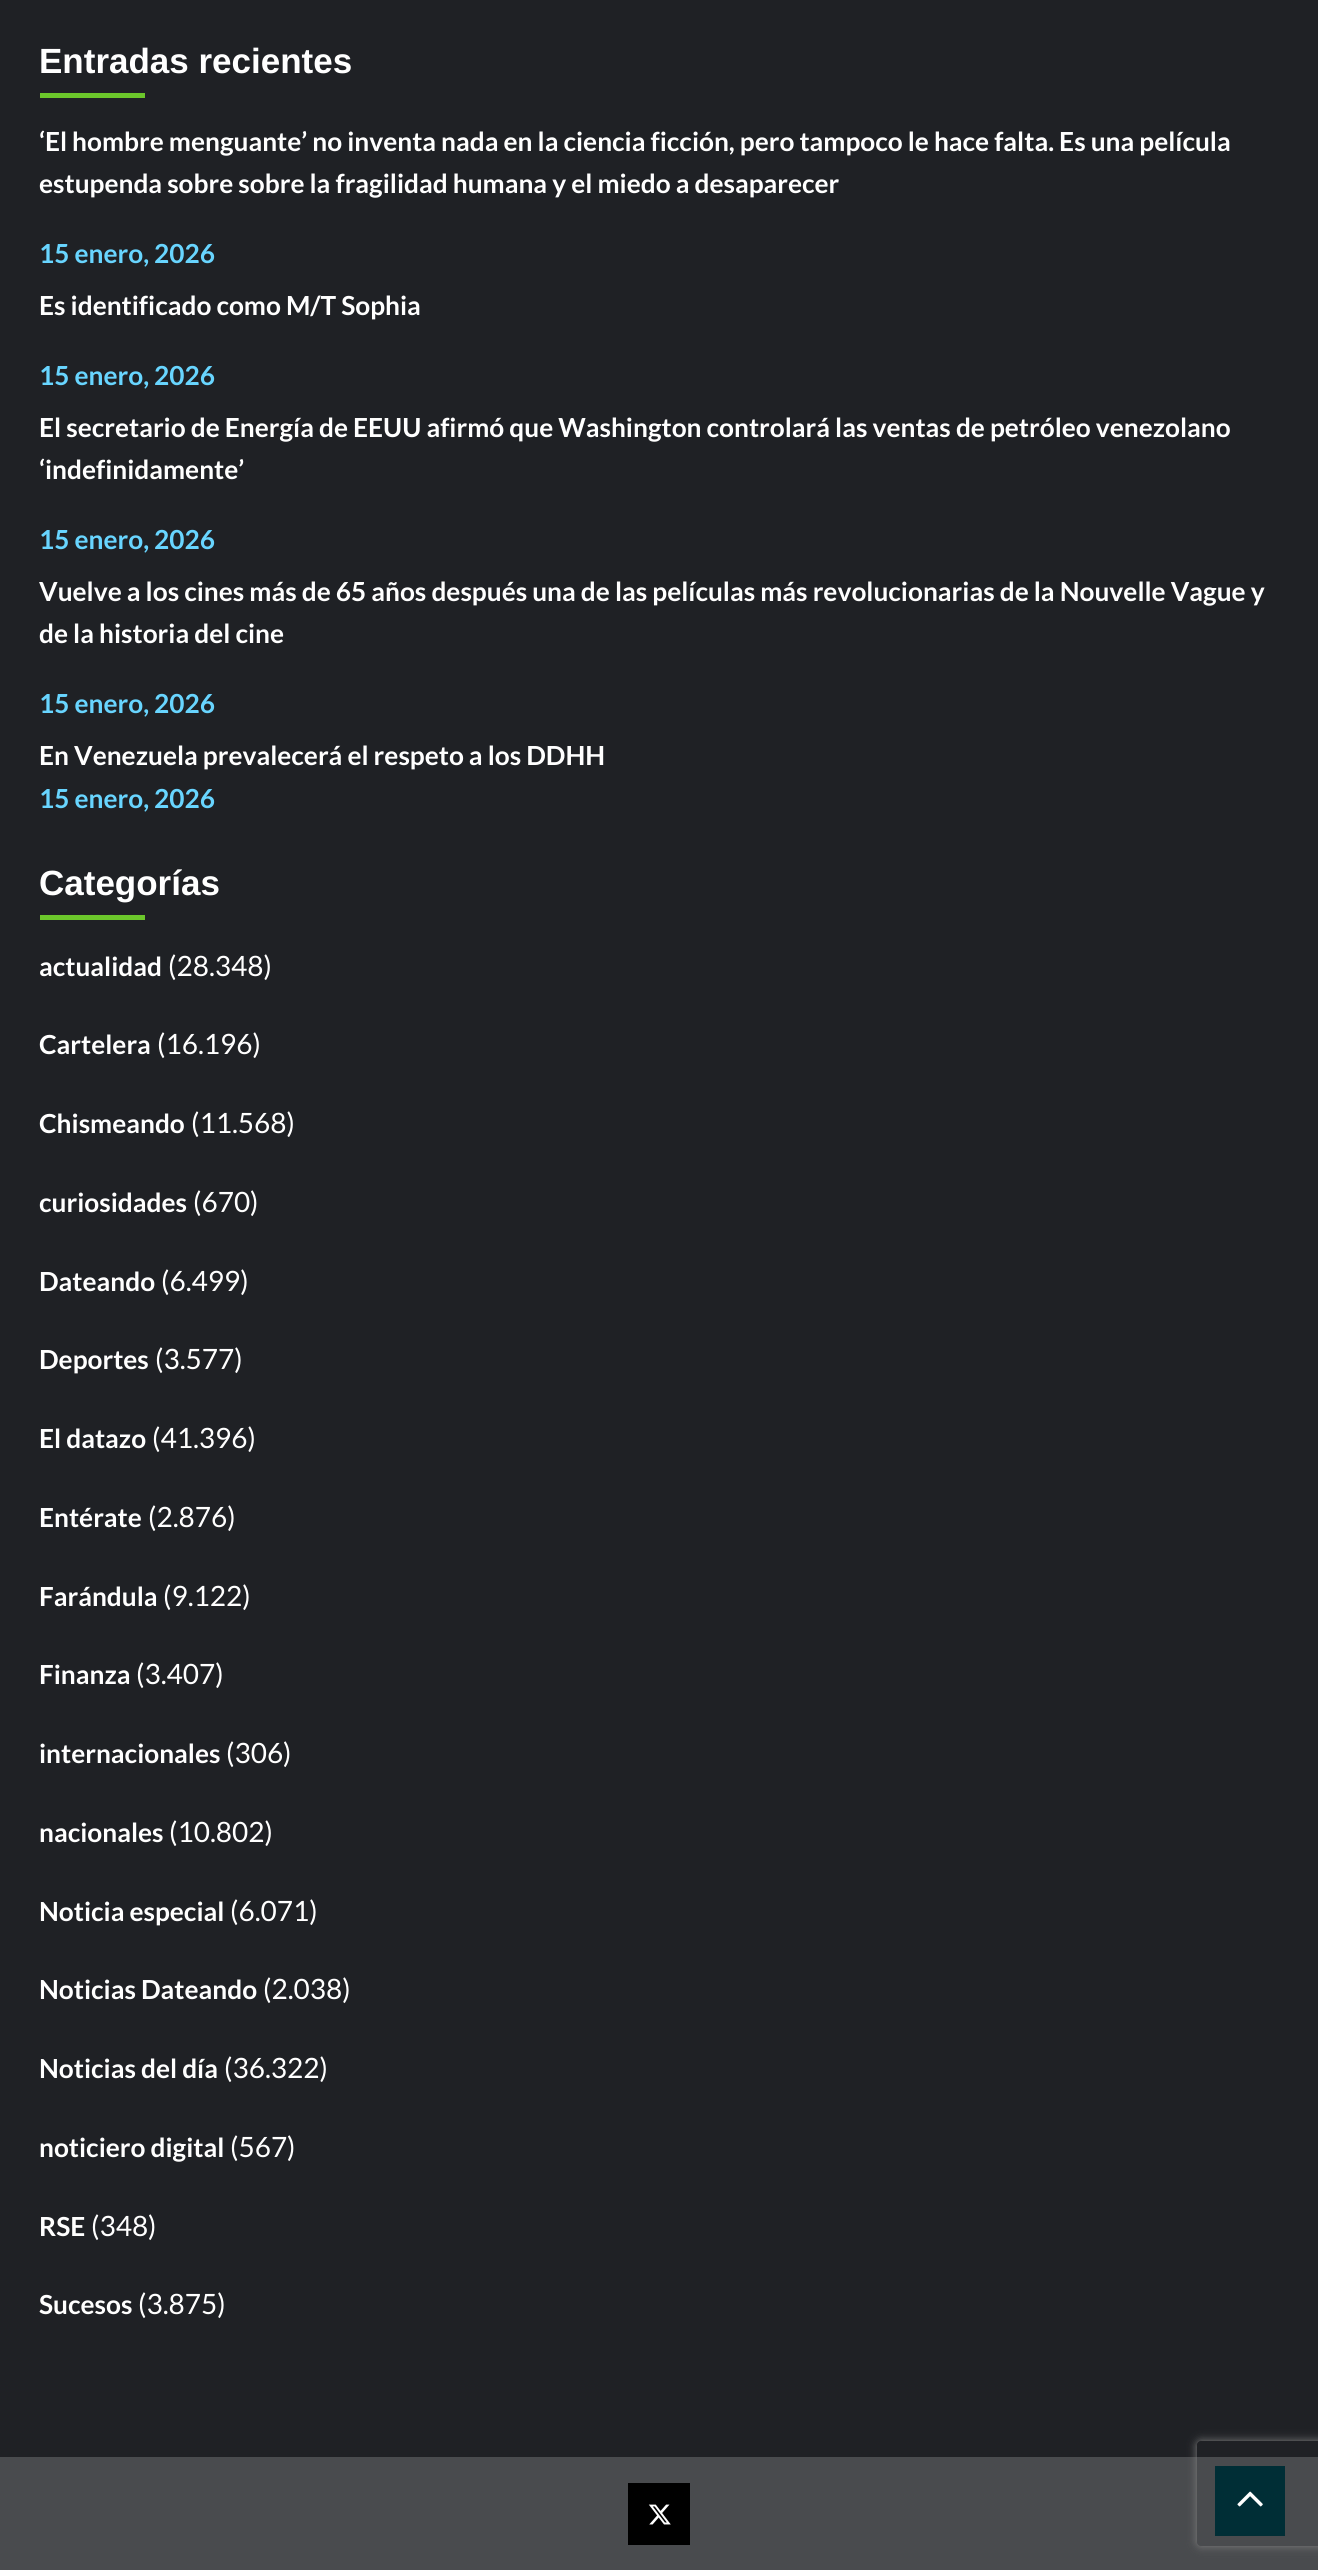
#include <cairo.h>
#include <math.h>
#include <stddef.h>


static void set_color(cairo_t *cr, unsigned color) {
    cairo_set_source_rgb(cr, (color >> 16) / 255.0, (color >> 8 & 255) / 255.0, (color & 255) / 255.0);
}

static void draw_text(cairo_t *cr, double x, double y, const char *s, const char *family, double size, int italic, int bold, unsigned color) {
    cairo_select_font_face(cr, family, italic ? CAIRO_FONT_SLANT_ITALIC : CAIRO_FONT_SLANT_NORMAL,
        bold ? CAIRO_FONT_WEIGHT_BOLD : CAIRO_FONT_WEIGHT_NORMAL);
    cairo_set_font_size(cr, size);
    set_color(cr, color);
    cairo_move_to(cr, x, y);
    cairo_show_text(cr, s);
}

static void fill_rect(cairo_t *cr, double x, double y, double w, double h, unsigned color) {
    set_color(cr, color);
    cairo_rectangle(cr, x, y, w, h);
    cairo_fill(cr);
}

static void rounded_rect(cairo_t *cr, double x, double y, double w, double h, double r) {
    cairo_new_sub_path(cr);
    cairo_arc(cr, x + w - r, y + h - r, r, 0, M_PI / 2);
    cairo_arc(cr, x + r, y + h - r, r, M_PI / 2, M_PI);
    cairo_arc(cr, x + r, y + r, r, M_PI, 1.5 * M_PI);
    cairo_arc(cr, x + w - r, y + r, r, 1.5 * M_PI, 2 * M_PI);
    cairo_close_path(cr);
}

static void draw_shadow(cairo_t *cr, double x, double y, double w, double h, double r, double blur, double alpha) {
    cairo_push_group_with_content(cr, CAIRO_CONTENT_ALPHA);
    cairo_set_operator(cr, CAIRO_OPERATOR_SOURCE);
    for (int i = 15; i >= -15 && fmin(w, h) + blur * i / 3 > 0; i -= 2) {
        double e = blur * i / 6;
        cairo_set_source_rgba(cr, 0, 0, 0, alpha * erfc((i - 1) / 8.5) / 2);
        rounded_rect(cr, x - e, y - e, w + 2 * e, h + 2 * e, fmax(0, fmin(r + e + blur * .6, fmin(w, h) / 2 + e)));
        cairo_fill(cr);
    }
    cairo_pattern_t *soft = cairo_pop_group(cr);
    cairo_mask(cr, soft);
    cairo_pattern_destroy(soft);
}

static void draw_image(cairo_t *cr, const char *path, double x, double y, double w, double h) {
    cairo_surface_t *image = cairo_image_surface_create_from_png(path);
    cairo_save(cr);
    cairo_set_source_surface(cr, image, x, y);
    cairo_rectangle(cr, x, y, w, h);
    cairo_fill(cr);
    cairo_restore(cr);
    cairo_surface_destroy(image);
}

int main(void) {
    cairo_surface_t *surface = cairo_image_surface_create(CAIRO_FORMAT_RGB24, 1318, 2570);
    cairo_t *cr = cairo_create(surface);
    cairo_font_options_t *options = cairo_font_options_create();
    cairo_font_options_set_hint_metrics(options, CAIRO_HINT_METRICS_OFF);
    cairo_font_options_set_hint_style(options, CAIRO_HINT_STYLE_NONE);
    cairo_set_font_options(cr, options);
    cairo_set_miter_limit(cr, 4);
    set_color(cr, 0x1F2125);
    cairo_paint(cr);
    draw_text(cr, 39, 73, "Entradas recientes", "Liberation Sans", 35, 0, 1, 0xFFFFFF);
    fill_rect(cr, 40, 93, 105, 5, 0x6BC72B);
    draw_text(cr, 39, 151, "‘El hombre menguante’ no inventa nada en la ciencia ficción, pero tampoco le hace falta. Es una película", "Lato", 26.25, 0, 1, 0xFFFFFF);
    draw_text(cr, 39, 193, "estupenda sobre sobre la fragilidad humana y el miedo a desaparecer", "Lato", 26.25, 0, 1, 0xFFFFFF);
    draw_text(cr, 39, 263, "15 enero, 2026", "Lato", 26.25, 0, 1, 0x68D5FF);
    draw_text(cr, 39, 315, "Es identificado como M/T Sophia", "Lato", 26.25, 0, 1, 0xFFFFFF);
    draw_text(cr, 39, 385, "15 enero, 2026", "Lato", 26.25, 0, 1, 0x68D5FF);
    draw_text(cr, 39, 437, "El secretario de Energía de EEUU afirmó que Washington controlará las ventas de petróleo venezolano", "Lato", 26.25, 0, 1, 0xFFFFFF);
    draw_text(cr, 39, 479, "‘indefinidamente’", "Lato", 26.25, 0, 1, 0xFFFFFF);
    draw_text(cr, 39, 549, "15 enero, 2026", "Lato", 26.25, 0, 1, 0x68D5FF);
    draw_text(cr, 39, 601, "Vuelve a los cines más de 65 años después una de las películas más revolucionarias de la Nouvelle Vague y", "Lato", 26.25, 0, 1, 0xFFFFFF);
    draw_text(cr, 39, 643, "de la historia del cine", "Lato", 26.25, 0, 1, 0xFFFFFF);
    draw_text(cr, 39, 713, "15 enero, 2026", "Lato", 26.25, 0, 1, 0x68D5FF);
    draw_text(cr, 39, 765, "En Venezuela prevalecerá el respeto a los DDHH", "Lato", 26.25, 0, 1, 0xFFFFFF);
    draw_text(cr, 39, 808, "15 enero, 2026", "Lato", 26.25, 0, 1, 0x68D5FF);
    draw_text(cr, 39, 895, "Categorías", "Liberation Sans", 35, 0, 1, 0xFFFFFF);
    fill_rect(cr, 40, 915, 105, 5, 0x6BC72B);
    draw_text(cr, 39, 976, "actualidad", "Lato", 26.25, 0, 1, 0xFFFFFF);
    draw_text(cr, 168, 976, "(28.348)", "Lato", 28, 0, 0, 0xFFFFFF);
    draw_text(cr, 39, 1054, "Cartelera", "Lato", 26.25, 0, 1, 0xFFFFFF);
    draw_text(cr, 157, 1054, "(16.196)", "Lato", 28, 0, 0, 0xFFFFFF);
    draw_text(cr, 39, 1133, "Chismeando", "Lato", 26.25, 0, 1, 0xFFFFFF);
    draw_text(cr, 191, 1133, "(11.568)", "Lato", 28, 0, 0, 0xFFFFFF);
    draw_text(cr, 39, 1212, "curiosidades", "Lato", 26.25, 0, 1, 0xFFFFFF);
    draw_text(cr, 193, 1212, "(670)", "Lato", 28, 0, 0, 0xFFFFFF);
    draw_text(cr, 39, 1291, "Dateando", "Lato", 26.25, 0, 1, 0xFFFFFF);
    draw_text(cr, 161, 1291, "(6.499)", "Lato", 28, 0, 0, 0xFFFFFF);
    draw_text(cr, 39, 1369, "Deportes", "Lato", 26.25, 0, 1, 0xFFFFFF);
    draw_text(cr, 155, 1369, "(3.577)", "Lato", 28, 0, 0, 0xFFFFFF);
    draw_text(cr, 39, 1448, "El datazo", "Lato", 26.25, 0, 1, 0xFFFFFF);
    draw_text(cr, 152, 1448, "(41.396)", "Lato", 28, 0, 0, 0xFFFFFF);
    draw_text(cr, 39, 1527, "Entérate", "Lato", 26.25, 0, 1, 0xFFFFFF);
    draw_text(cr, 148, 1527, "(2.876)", "Lato", 28, 0, 0, 0xFFFFFF);
    draw_text(cr, 39, 1606, "Farándula", "Lato", 26.25, 0, 1, 0xFFFFFF);
    draw_text(cr, 163, 1606, "(9.122)", "Lato", 28, 0, 0, 0xFFFFFF);
    draw_text(cr, 39, 1684, "Finanza", "Lato", 26.25, 0, 1, 0xFFFFFF);
    draw_text(cr, 136, 1684, "(3.407)", "Lato", 28, 0, 0, 0xFFFFFF);
    draw_text(cr, 39, 1763, "internacionales", "Lato", 26.25, 0, 1, 0xFFFFFF);
    draw_text(cr, 226, 1763, "(306)", "Lato", 28, 0, 0, 0xFFFFFF);
    draw_text(cr, 39, 1842, "nacionales", "Lato", 26.25, 0, 1, 0xFFFFFF);
    draw_text(cr, 169, 1842, "(10.802)", "Lato", 28, 0, 0, 0xFFFFFF);
    draw_text(cr, 39, 1921, "Noticia especial", "Lato", 26.25, 0, 1, 0xFFFFFF);
    draw_text(cr, 230, 1921, "(6.071)", "Lato", 28, 0, 0, 0xFFFFFF);
    draw_text(cr, 39, 1999, "Noticias Dateando", "Lato", 26.25, 0, 1, 0xFFFFFF);
    draw_text(cr, 263, 1999, "(2.038)", "Lato", 28, 0, 0, 0xFFFFFF);
    draw_text(cr, 39, 2078, "Noticias del día", "Lato", 26.25, 0, 1, 0xFFFFFF);
    draw_text(cr, 224, 2078, "(36.322)", "Lato", 28, 0, 0, 0xFFFFFF);
    draw_text(cr, 39, 2157, "noticiero digital", "Lato", 26.25, 0, 1, 0xFFFFFF);
    draw_text(cr, 230, 2157, "(567)", "Lato", 28, 0, 0, 0xFFFFFF);
    draw_text(cr, 39, 2236, "RSE", "Lato", 26.25, 0, 1, 0xFFFFFF);
    draw_text(cr, 91, 2236, "(348)", "Lato", 28, 0, 0, 0xFFFFFF);
    draw_text(cr, 39, 2314, "Sucesos", "Lato", 26.25, 0, 1, 0xFFFFFF);
    draw_text(cr, 138, 2314, "(3.875)", "Lato", 28, 0, 0, 0xFFFFFF);
    fill_rect(cr, 0, 2457, 1318, 113, 0x494B4E);
    fill_rect(cr, 628, 2483, 62, 62, 0x000000);
    draw_image(cr, "assets/img1.png", 648, 2504, 23, 21);
    cairo_save(cr);
    cairo_set_fill_rule(cr, CAIRO_FILL_RULE_EVEN_ODD);
    cairo_new_path(cr);
    cairo_move_to(cr, 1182, 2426);
    cairo_line_to(cr, 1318, 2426);
    cairo_line_to(cr, 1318, 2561);
    cairo_line_to(cr, 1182, 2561);
    cairo_close_path(cr);
    cairo_move_to(cr, 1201, 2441);
    cairo_line_to(cr, 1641, 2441);
    cairo_curve_to(cr, 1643, 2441, 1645, 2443, 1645, 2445);
    cairo_line_to(cr, 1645, 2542);
    cairo_curve_to(cr, 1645, 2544, 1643, 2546, 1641, 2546);
    cairo_line_to(cr, 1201, 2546);
    cairo_curve_to(cr, 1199, 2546, 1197, 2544, 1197, 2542);
    cairo_line_to(cr, 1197, 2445);
    cairo_curve_to(cr, 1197, 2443, 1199, 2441, 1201, 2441);
    cairo_close_path(cr);
    cairo_clip(cr);
    set_color(cr, 0x808080);
    draw_shadow(cr, 1197, 2441, 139, 105, 4, 4.5, 1);
    cairo_restore(cr);
    fill_rect(cr, 1215, 2466, 70, 70, 0x002E36);
    draw_image(cr, "assets/img2.png", 1237, 2491, 26, 16);
    cairo_surface_write_to_png(surface, "output.png");
    cairo_font_options_destroy(options);
    cairo_destroy(cr);
    cairo_surface_destroy(surface);
    return 0;
}
